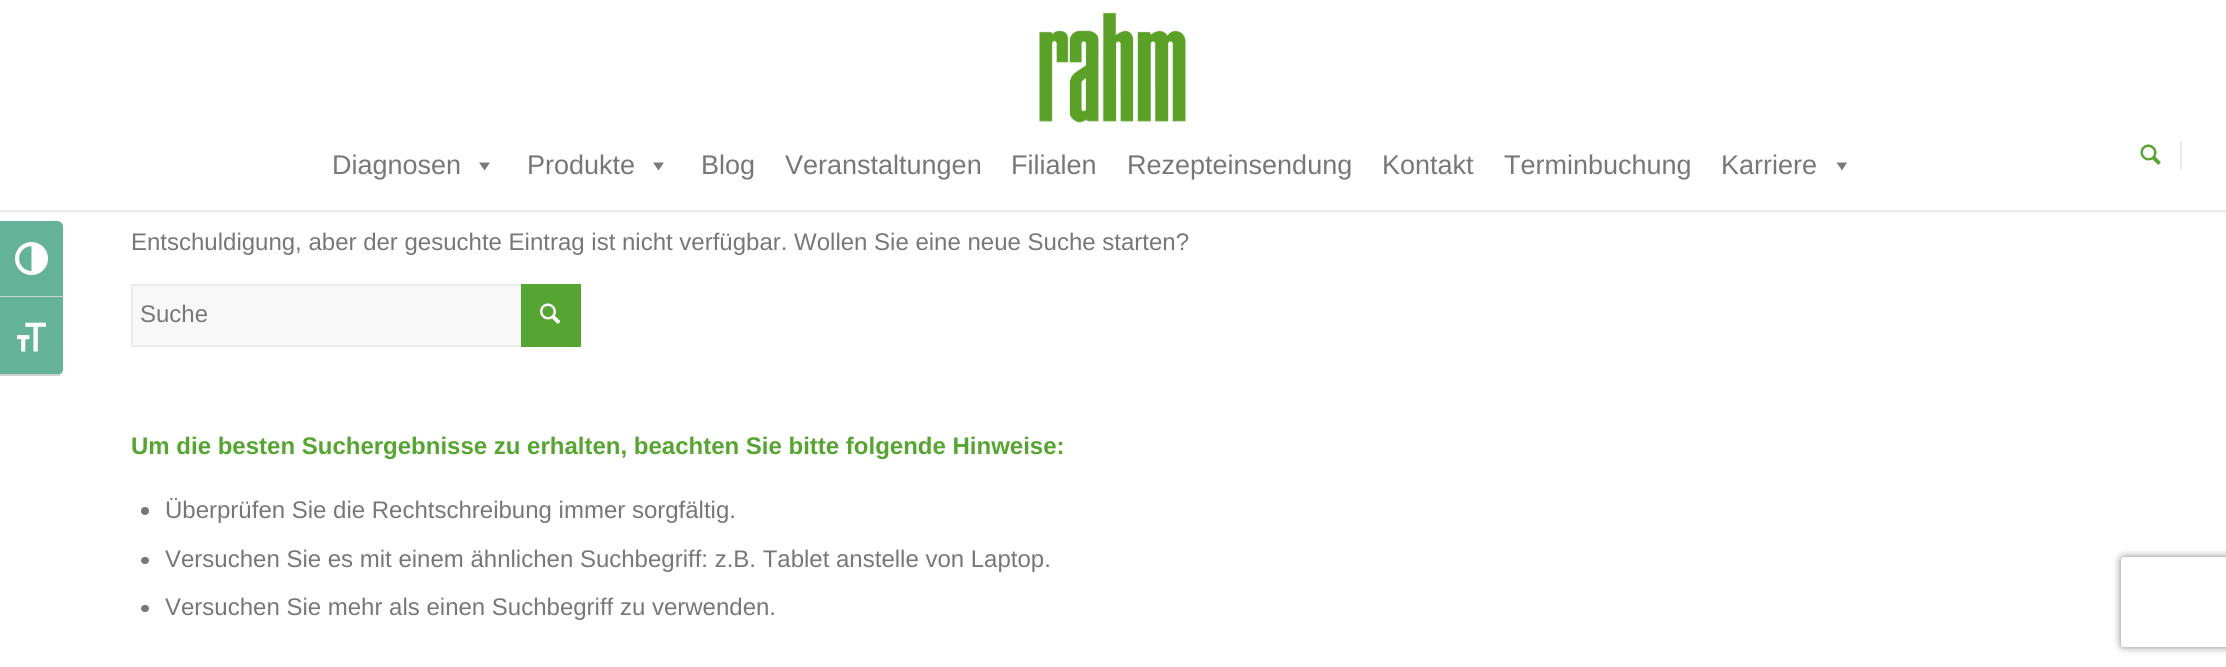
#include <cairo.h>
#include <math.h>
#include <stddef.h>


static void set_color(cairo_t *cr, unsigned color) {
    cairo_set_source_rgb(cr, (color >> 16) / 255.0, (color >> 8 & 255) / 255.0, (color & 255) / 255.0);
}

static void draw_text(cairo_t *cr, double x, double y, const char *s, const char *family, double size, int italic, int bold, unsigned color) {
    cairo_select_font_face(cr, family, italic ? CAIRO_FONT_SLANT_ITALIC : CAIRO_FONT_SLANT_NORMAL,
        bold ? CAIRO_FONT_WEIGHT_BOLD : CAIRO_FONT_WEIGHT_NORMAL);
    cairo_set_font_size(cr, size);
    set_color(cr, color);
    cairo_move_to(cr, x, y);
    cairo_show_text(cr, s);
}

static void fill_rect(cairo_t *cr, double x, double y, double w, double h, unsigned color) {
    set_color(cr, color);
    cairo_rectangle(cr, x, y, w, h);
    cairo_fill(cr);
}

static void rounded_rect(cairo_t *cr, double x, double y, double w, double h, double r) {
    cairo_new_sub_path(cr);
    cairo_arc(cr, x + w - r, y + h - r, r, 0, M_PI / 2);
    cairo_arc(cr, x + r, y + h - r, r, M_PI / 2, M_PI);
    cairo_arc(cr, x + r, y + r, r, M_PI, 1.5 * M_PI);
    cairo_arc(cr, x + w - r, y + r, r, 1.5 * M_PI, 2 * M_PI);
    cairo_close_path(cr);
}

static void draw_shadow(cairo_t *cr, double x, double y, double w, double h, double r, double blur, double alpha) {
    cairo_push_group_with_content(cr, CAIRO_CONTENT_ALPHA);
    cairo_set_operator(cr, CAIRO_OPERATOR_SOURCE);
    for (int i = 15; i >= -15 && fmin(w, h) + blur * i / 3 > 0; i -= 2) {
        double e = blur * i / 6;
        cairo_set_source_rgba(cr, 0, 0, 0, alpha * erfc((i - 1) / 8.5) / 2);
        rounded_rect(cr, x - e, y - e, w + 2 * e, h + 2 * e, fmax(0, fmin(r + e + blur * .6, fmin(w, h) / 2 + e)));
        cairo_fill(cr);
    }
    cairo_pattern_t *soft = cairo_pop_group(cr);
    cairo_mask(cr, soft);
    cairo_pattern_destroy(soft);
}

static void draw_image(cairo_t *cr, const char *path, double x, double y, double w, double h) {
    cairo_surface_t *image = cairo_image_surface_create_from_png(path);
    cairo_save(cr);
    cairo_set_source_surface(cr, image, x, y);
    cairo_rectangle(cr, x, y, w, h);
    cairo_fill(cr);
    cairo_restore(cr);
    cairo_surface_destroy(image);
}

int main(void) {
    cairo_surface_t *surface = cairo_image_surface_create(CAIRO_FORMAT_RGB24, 2226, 667);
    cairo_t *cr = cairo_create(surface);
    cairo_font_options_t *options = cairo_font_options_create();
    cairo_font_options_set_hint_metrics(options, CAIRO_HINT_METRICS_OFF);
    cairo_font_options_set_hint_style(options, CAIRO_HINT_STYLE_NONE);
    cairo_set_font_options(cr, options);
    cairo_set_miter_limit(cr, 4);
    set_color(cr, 0xFFFFFF);
    cairo_paint(cr);
    set_color(cr, 0x64B298);
    cairo_new_path(cr);
    cairo_move_to(cr, 0, 221);
    cairo_line_to(cr, 57, 221);
    cairo_curve_to(cr, 60.5, 221, 63, 223.5, 63, 227);
    cairo_line_to(cr, 63, 297);
    cairo_line_to(cr, 0, 297);
    cairo_close_path(cr);
    cairo_fill(cr);
    fill_rect(cr, 0, 296, 63, 1, 0xD2D2D2);
    draw_image(cr, "assets/img1.png", 15, 242, 33, 34);
    set_color(cr, 0x64B298);
    cairo_new_path(cr);
    cairo_move_to(cr, 0, 297);
    cairo_line_to(cr, 63, 297);
    cairo_line_to(cr, 63, 369);
    cairo_curve_to(cr, 63, 372.5, 60.5, 375, 57, 375);
    cairo_line_to(cr, 0, 375);
    cairo_close_path(cr);
    cairo_fill(cr);
    fill_rect(cr, 0, 374, 60, 2, 0xD2D2D2);
    draw_image(cr, "assets/img2.png", 17, 322, 29, 30);
    set_color(cr, 0x000000);
    draw_shadow(cr, -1, -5, 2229, 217, 0, 1.5, 0.1);
    fill_rect(cr, 0, 0, 2226, 210, 0xFFFFFF);
    draw_image(cr, "assets/img3.png", 1039, 12, 147, 111);
    draw_text(cr, 332, 174, "Diagnosen", "Liberation Sans", 27, 0, 0, 0x777777);
    set_color(cr, 0x7A7A7A);
    cairo_new_path(cr);
    cairo_move_to(cr, 490, 162.5);
    cairo_line_to(cr, 484.5, 170.5);
    cairo_line_to(cr, 479, 162.5);
    cairo_close_path(cr);
    cairo_fill(cr);
    draw_text(cr, 527, 174, "Produkte", "Liberation Sans", 27, 0, 0, 0x777777);
    set_color(cr, 0x7A7A7A);
    cairo_new_path(cr);
    cairo_move_to(cr, 664, 162.5);
    cairo_line_to(cr, 658.5, 170.5);
    cairo_line_to(cr, 653, 162.5);
    cairo_close_path(cr);
    cairo_fill(cr);
    draw_text(cr, 701, 174, "Blog", "Liberation Sans", 27, 0, 0, 0x777777);
    draw_text(cr, 785, 174, "Veranstaltungen", "Liberation Sans", 27, 0, 0, 0x777777);
    draw_text(cr, 1011, 174, "Filialen", "Liberation Sans", 27, 0, 0, 0x777777);
    draw_text(cr, 1127, 174, "Rezepteinsendung", "Liberation Sans", 27, 0, 0, 0x777777);
    draw_text(cr, 1382, 174, "Kontakt", "Liberation Sans", 27, 0, 0, 0x777777);
    draw_text(cr, 1504, 174, "Terminbuchung", "Liberation Sans", 27, 0, 0, 0x777777);
    draw_text(cr, 1721, 174, "Karriere", "Liberation Sans", 27, 0, 0, 0x777777);
    set_color(cr, 0x7A7A7A);
    cairo_new_path(cr);
    cairo_move_to(cr, 1847, 162.5);
    cairo_line_to(cr, 1842, 170.5);
    cairo_line_to(cr, 1836.5, 162.5);
    cairo_close_path(cr);
    cairo_fill(cr);
    draw_image(cr, "assets/img4.png", 2140, 144, 21, 21);
    fill_rect(cr, 2180, 141, 2, 29, 0xEBEBEB);
    draw_text(cr, 131, 250, "Entschuldigung, aber der gesuchte Eintrag ist nicht verfügbar. Wollen Sie eine neue Suche starten?", "Liberation Sans", 24, 0, 0, 0x777777);
    fill_rect(cr, 133, 286, 388, 59, 0xF8F8F8);
    cairo_rectangle(cr, 132, 285, 448, 61);
    set_color(cr, 0xEBEBEB);
    cairo_stroke(cr);
    draw_text(cr, 140, 322, "Suche", "Liberation Sans", 24, 0, 0, 0x777777);
    fill_rect(cr, 521, 284, 60, 63, 0x56A432);
    draw_image(cr, "assets/img5.png", 540, 303, 21, 21);
    draw_text(cr, 131, 454, "Um die besten Suchergebnisse zu erhalten, beachten Sie bitte folgende Hinweise:", "Liberation Sans", 24, 0, 1, 0x56A432);
    set_color(cr, 0x777777);
    cairo_new_path(cr);
    cairo_arc(cr, 145, 511, 4, 0, 2 * M_PI);
    cairo_fill(cr);
    draw_text(cr, 165, 518, "Überprüfen Sie die Rechtschreibung immer sorgfältig.", "Liberation Sans", 24, 0, 0, 0x777777);
    rounded_rect(cr, 141, 557, 8, 7, 3.5);
    cairo_fill(cr);
    draw_text(cr, 165, 567, "Versuchen Sie es mit einem ähnlichen Suchbegriff: z.B. Tablet anstelle von Laptop.", "Liberation Sans", 24, 0, 0, 0x777777);
    rounded_rect(cr, 141, 605, 8, 7, 3.5);
    cairo_fill(cr);
    draw_text(cr, 165, 615, "Versuchen Sie mehr als einen Suchbegriff zu verwenden.", "Liberation Sans", 24, 0, 0, 0x777777);
    cairo_save(cr);
    cairo_set_fill_rule(cr, CAIRO_FILL_RULE_EVEN_ODD);
    cairo_new_path(cr);
    cairo_move_to(cr, 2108, 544);
    cairo_line_to(cr, 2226, 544);
    cairo_line_to(cr, 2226, 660);
    cairo_line_to(cr, 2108, 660);
    cairo_close_path(cr);
    cairo_move_to(cr, 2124, 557);
    cairo_line_to(cr, 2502, 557);
    cairo_curve_to(cr, 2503.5, 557, 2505, 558.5, 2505, 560);
    cairo_line_to(cr, 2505, 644);
    cairo_curve_to(cr, 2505, 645.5, 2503.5, 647, 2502, 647);
    cairo_line_to(cr, 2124, 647);
    cairo_curve_to(cr, 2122.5, 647, 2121, 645.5, 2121, 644);
    cairo_line_to(cr, 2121, 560);
    cairo_curve_to(cr, 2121, 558.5, 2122.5, 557, 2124, 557);
    cairo_close_path(cr);
    cairo_clip(cr);
    set_color(cr, 0x808080);
    draw_shadow(cr, 2121, 557, 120, 90, 3, 4, 1);
    cairo_restore(cr);
    cairo_surface_write_to_png(surface, "output.png");
    cairo_font_options_destroy(options);
    cairo_destroy(cr);
    cairo_surface_destroy(surface);
    return 0;
}
